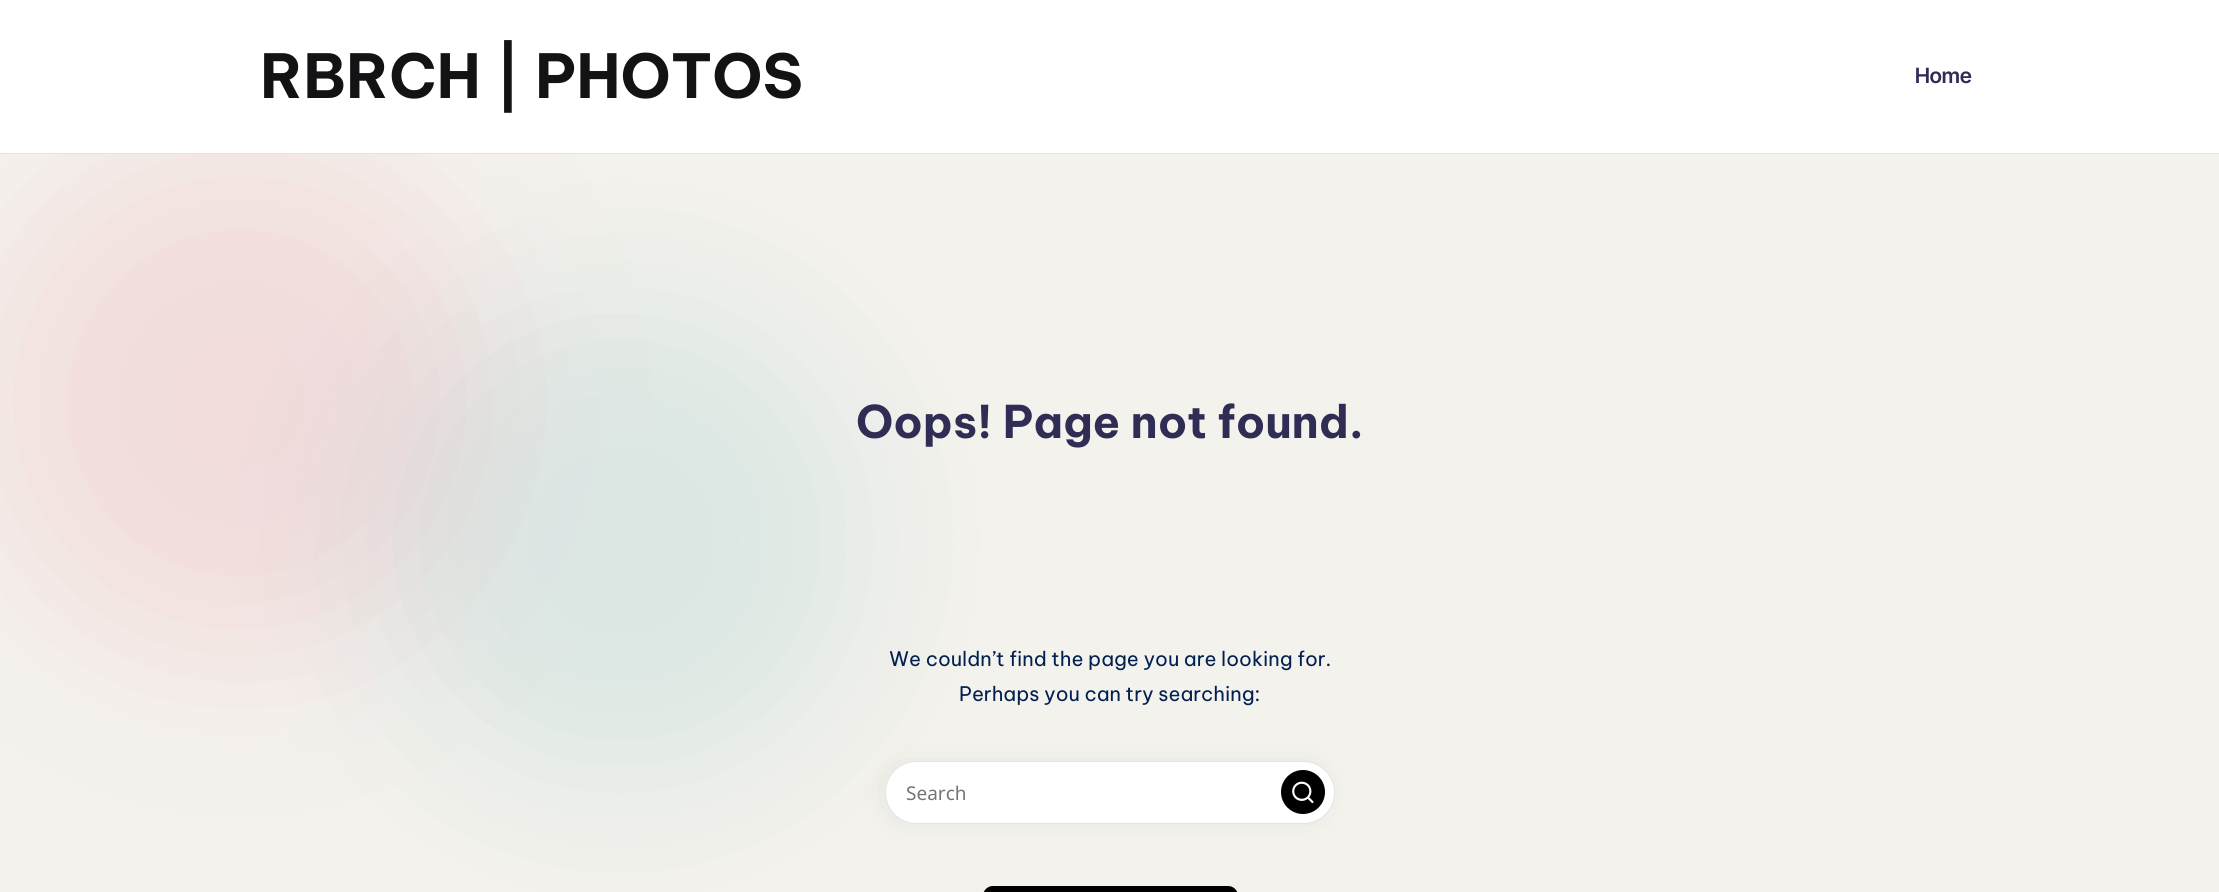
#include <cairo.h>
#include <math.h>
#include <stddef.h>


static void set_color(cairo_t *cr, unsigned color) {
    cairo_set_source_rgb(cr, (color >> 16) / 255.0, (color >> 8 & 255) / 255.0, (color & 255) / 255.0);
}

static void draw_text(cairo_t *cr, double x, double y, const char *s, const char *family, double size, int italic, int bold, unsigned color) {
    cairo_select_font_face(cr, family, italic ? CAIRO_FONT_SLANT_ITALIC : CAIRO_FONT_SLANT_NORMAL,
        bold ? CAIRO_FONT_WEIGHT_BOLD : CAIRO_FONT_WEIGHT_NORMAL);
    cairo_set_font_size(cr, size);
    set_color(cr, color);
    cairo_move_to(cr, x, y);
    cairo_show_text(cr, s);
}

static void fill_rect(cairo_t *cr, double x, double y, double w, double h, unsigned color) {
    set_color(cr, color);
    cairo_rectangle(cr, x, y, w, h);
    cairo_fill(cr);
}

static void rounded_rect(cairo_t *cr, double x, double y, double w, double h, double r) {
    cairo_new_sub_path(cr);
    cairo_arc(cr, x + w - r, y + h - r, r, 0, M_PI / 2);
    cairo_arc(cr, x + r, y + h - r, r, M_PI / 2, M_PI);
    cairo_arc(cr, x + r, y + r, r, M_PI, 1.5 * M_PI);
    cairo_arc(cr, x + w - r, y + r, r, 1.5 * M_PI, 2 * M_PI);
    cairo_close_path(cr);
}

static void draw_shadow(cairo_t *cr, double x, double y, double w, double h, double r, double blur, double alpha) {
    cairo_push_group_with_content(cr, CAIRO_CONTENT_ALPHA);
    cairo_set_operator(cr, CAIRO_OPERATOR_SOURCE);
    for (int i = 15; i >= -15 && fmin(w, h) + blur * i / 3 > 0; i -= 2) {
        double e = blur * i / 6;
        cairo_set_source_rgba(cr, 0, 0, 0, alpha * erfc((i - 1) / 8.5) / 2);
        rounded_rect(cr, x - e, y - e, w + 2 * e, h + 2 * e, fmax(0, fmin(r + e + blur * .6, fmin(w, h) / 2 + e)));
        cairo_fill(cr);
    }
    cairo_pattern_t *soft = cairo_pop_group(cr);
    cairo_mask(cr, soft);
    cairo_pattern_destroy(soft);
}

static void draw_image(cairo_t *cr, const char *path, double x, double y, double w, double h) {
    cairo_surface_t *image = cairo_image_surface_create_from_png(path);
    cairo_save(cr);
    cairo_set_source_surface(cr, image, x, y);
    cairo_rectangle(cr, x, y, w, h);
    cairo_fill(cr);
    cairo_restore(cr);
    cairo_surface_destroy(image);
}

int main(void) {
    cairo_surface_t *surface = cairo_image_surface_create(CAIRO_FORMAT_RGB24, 2219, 892);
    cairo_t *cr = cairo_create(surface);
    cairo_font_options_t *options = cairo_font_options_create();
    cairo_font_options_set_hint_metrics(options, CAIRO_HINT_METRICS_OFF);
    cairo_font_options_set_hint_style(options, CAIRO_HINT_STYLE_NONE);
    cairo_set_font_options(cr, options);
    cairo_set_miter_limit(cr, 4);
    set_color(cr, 0xF4F2ED);
    cairo_paint(cr);
    set_color(cr, 0xF2DCDC);
    draw_shadow(cr, 0, 163, 480, 480, 240, 80, 1);
    set_color(cr, 0x04868B);
    draw_shadow(cr, 380, 300, 480, 480, 240, 80, 0.1);
    fill_rect(cr, 0, 0, 2219, 153, 0xFFFFFF);
    fill_rect(cr, 0, 153, 2219, 1, 0xE3E3E3);
    draw_text(cr, 260, 98, "RBRCH | PHOTOS", "Be Vietnam Pro", 60.6, 0, 1, 0x131315);
    draw_text(cr, 1915, 83, "Home", "Inter Tight SemiBold", 21, 0, 0, 0x302D55);
    draw_text(cr, 856, 438, "Oops! Page not found.", "Be Vietnam Pro", 45, 0, 1, 0x302D55);
    draw_text(cr, 889, 666, "We couldn’t find the page you are looking for.", "Be Vietnam Pro", 20, 0, 0, 0x002050);
    draw_text(cr, 959, 701, "Perhaps you can try searching:", "Be Vietnam Pro", 20, 0, 0, 0x002050);
    set_color(cr, 0x000000);
    draw_shadow(cr, 901, 781, 410, 23, 11.5, 20, 0.15);
    set_color(cr, 0xFFFFFF);
    rounded_rect(cr, 885, 761, 450, 63, 31.5);
    cairo_fill(cr);
    rounded_rect(cr, 885.5, 761.5, 449, 62, 31);
    cairo_set_source_rgba(cr, 0.725, 0.725, 0.725, 0.4);
    cairo_set_line_width(cr, 1);
    cairo_stroke(cr);
    draw_text(cr, 906, 800, "Search", "Noto Sans", 19, 0, 0, 0x757575);
    set_color(cr, 0x000000);
    cairo_new_path(cr);
    cairo_arc(cr, 1303, 792, 22, 0, 2 * M_PI);
    cairo_fill(cr);
    draw_image(cr, "assets/img1.png", 1292, 781, 22, 23);
    rounded_rect(cr, 983, 886, 255, 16, 10);
    cairo_fill(cr);
    rounded_rect(cr, 983.5, 886.5, 254, 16, 9.5);
    cairo_set_source_rgba(cr, 0, 0, 0, 0.12);
    cairo_stroke(cr);
    cairo_surface_write_to_png(surface, "output.png");
    cairo_font_options_destroy(options);
    cairo_destroy(cr);
    cairo_surface_destroy(surface);
    return 0;
}
